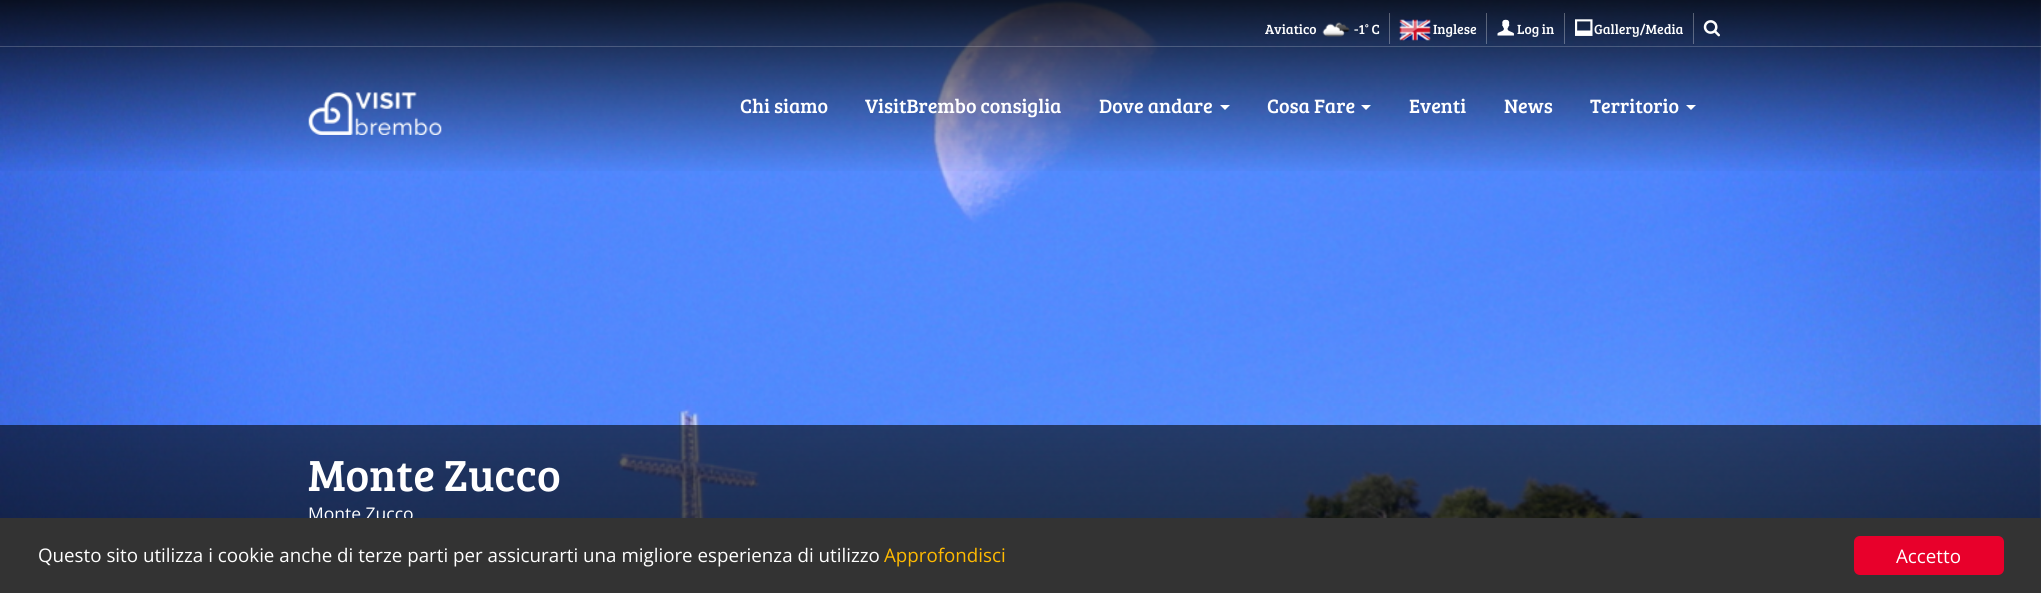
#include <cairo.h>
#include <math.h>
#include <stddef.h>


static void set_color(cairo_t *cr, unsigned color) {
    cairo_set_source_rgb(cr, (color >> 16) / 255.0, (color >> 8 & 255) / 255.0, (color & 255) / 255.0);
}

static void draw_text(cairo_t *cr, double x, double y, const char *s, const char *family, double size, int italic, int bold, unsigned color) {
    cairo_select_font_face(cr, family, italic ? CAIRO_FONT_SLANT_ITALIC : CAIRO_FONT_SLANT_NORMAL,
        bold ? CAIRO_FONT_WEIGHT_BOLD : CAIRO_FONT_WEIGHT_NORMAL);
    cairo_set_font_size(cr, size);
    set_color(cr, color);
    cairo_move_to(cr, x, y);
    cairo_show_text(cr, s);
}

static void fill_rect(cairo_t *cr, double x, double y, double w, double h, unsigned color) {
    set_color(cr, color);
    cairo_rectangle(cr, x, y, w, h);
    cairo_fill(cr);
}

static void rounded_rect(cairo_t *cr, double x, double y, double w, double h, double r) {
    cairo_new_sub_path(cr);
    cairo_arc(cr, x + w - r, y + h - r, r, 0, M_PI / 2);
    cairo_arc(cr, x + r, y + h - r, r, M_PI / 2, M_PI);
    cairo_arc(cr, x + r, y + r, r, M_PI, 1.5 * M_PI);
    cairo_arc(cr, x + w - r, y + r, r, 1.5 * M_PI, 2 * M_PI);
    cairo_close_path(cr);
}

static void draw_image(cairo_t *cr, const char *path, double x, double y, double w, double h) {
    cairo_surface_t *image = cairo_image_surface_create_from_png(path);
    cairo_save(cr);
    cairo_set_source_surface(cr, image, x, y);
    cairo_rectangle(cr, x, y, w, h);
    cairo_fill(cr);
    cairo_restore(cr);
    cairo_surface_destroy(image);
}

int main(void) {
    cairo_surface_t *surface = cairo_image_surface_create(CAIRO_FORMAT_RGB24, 2041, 593);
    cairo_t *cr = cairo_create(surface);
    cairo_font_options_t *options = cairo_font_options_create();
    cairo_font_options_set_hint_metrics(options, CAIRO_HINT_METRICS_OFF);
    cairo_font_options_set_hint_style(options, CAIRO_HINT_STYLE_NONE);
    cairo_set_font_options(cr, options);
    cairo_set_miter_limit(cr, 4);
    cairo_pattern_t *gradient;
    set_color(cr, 0xFFFFFF);
    cairo_paint(cr);
    draw_image(cr, "assets/img1.png", 0, 0, 2041, 518);
    gradient = cairo_pattern_create_linear(1021, 0, 1021, 175);
    cairo_pattern_add_color_stop_rgba(gradient, 0, 0, 0, 0, 0.85);
    cairo_pattern_add_color_stop_rgba(gradient, 1, 0, 0, 0, 0);
    cairo_set_source(cr, gradient);
    cairo_pattern_destroy(gradient);
    cairo_rectangle(cr, 0, 0, 2041, 171);
    cairo_fill(cr);
    cairo_set_source_rgba(cr, 1, 1, 1, 0.2);
    cairo_rectangle(cr, 0, 46, 2041, 1);
    cairo_fill(cr);
    draw_text(cr, 1265, 34, "Aviatico", "Bree Serif", 13.75, 0, 0, 0xFFFFFF);
    draw_image(cr, "assets/img2.png", 1322, 22, 28, 15);
    draw_text(cr, 1354, 34, "-1° C", "Bree Serif", 13.75, 0, 0, 0xFFFFFF);
    cairo_set_source_rgba(cr, 1, 1, 1, 0.3);
    cairo_rectangle(cr, 1389, 13, 1, 31);
    cairo_fill(cr);
    draw_image(cr, "assets/img3.png", 1399, 19, 32, 22);
    draw_text(cr, 1433, 34, "Inglese", "Bree Serif", 13.75, 0, 0, 0xFFFFFF);
    cairo_set_source_rgba(cr, 1, 1, 1, 0.3);
    cairo_rectangle(cr, 1486, 13, 1, 31);
    cairo_fill(cr);
    draw_image(cr, "assets/img4.png", 1497, 19, 17, 17);
    draw_text(cr, 1517, 34, "Log in", "Bree Serif", 13.75, 0, 0, 0xFFFFFF);
    cairo_set_source_rgba(cr, 1, 1, 1, 0.3);
    cairo_rectangle(cr, 1564, 13, 1, 31);
    cairo_fill(cr);
    draw_image(cr, "assets/img5.png", 1575, 19, 18, 17);
    draw_text(cr, 1594, 34, "Gallery/Media", "Bree Serif", 13.75, 0, 0, 0xFFFFFF);
    cairo_set_source_rgba(cr, 1, 1, 1, 0.3);
    cairo_rectangle(cr, 1693, 13, 1, 31);
    cairo_fill(cr);
    draw_image(cr, "assets/img6.png", 1703, 20, 17, 17);
    draw_image(cr, "assets/img7.png", 308, 92, 134, 43);
    draw_text(cr, 740, 113, "Chi siamo", "Bree Serif", 20, 0, 0, 0xFFFFFF);
    draw_text(cr, 865, 113, "VisitBrembo consiglia", "Bree Serif", 20, 0, 0, 0xFFFFFF);
    draw_text(cr, 1099, 113, "Dove andare", "Bree Serif", 20, 0, 0, 0xFFFFFF);
    cairo_new_path(cr);
    cairo_move_to(cr, 1220, 105);
    cairo_line_to(cr, 1230, 105);
    cairo_line_to(cr, 1225, 110);
    cairo_close_path(cr);
    cairo_fill(cr);
    draw_text(cr, 1267, 113, "Cosa Fare", "Bree Serif", 20, 0, 0, 0xFFFFFF);
    cairo_new_path(cr);
    cairo_move_to(cr, 1361, 105);
    cairo_line_to(cr, 1371, 105);
    cairo_line_to(cr, 1366, 110);
    cairo_close_path(cr);
    cairo_fill(cr);
    draw_text(cr, 1409, 113, "Eventi", "Bree Serif", 20, 0, 0, 0xFFFFFF);
    draw_text(cr, 1504, 113, "News", "Bree Serif", 20, 0, 0, 0xFFFFFF);
    draw_text(cr, 1590, 113, "Territorio", "Bree Serif", 20, 0, 0, 0xFFFFFF);
    cairo_new_path(cr);
    cairo_move_to(cr, 1686, 105);
    cairo_line_to(cr, 1696, 105);
    cairo_line_to(cr, 1691, 110);
    cairo_close_path(cr);
    cairo_fill(cr);
    draw_image(cr, "assets/img8.png", 0, 425, 2041, 93);
    draw_text(cr, 308, 491, "Monte Zucco", "Bree Serif", 45, 0, 0, 0xFFFFFF);
    draw_text(cr, 308, 520, "Monte Zucco", "Open Sans", 17.5, 0, 0, 0xFFFFFF);
    fill_rect(cr, 0, 518, 2041, 75, 0x333333);
    draw_text(cr, 38, 562, "Questo sito utilizza i cookie anche di terze parti per assicurarti una migliore esperienza di utilizzo", "Open Sans", 18.75, 0, 0, 0xFFFFFF);
    draw_text(cr, 884, 562, "Approfondisci", "Open Sans", 18.75, 0, 0, 0xFFBA00);
    set_color(cr, 0xE8002B);
    rounded_rect(cr, 1854, 536, 150, 39, 6);
    cairo_fill(cr);
    draw_text(cr, 1896, 563, "Accetto", "Open Sans", 18.75, 0, 0, 0xFFFFFF);
    cairo_surface_write_to_png(surface, "output.png");
    cairo_font_options_destroy(options);
    cairo_destroy(cr);
    cairo_surface_destroy(surface);
    return 0;
}
